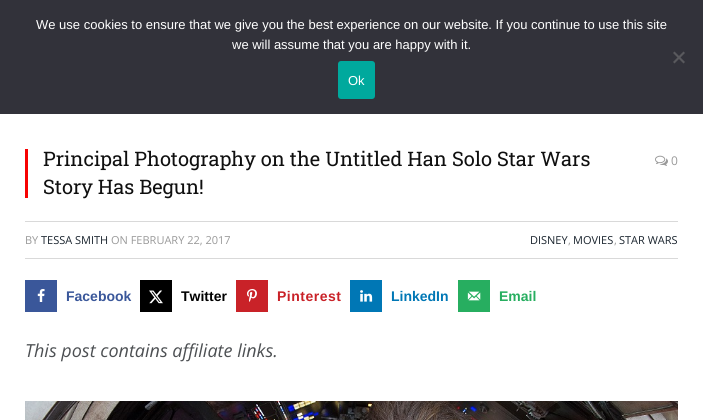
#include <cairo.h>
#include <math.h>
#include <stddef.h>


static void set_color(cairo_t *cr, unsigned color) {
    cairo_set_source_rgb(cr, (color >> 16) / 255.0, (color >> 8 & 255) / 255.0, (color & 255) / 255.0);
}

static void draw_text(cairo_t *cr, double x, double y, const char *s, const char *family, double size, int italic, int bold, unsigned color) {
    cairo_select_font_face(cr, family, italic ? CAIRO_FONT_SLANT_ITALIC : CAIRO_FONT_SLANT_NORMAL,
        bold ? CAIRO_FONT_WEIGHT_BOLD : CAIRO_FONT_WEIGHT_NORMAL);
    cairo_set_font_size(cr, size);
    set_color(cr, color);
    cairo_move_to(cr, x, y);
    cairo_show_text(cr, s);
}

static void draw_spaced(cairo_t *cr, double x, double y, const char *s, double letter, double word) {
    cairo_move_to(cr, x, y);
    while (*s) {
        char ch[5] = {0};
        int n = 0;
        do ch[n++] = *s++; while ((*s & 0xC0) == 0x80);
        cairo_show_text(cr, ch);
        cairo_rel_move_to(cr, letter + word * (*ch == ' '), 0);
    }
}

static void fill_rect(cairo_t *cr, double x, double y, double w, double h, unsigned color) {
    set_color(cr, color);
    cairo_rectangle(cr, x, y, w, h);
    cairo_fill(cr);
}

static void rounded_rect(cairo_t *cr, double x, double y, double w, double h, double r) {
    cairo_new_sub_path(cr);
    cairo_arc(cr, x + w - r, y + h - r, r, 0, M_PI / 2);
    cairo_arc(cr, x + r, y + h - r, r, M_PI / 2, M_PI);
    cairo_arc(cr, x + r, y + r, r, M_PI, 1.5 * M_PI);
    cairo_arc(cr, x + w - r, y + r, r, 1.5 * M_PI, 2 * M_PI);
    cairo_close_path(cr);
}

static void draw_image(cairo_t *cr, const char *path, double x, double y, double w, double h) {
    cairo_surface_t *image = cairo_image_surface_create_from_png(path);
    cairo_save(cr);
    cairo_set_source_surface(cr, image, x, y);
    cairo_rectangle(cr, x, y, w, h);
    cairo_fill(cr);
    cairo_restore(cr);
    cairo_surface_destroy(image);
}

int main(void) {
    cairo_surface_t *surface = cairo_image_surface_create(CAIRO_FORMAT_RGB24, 703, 420);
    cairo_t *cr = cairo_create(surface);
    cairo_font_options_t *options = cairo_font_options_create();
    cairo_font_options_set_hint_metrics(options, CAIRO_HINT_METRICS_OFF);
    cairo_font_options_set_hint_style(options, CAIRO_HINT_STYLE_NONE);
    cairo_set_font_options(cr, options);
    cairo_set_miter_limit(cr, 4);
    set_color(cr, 0xFFFFFF);
    cairo_paint(cr);
    fill_rect(cr, 0, 0, 703, 114, 0x32323A);
    draw_text(cr, 36, 29, "We use cookies to ensure that we give you the best experience on our website. If you continue to use this site", "Liberation Sans", 13, 0, 0, 0xFFFFFF);
    draw_text(cr, 232, 49, "we will assume that you are happy with it.", "Liberation Sans", 13, 0, 0, 0xFFFFFF);
    set_color(cr, 0x59595D);
    cairo_new_path(cr);
    cairo_move_to(cr, 683.5, 51.5);
    cairo_line_to(cr, 685, 53);
    cairo_line_to(cr, 674.5, 63.5);
    cairo_line_to(cr, 673, 62);
    cairo_close_path(cr);
    cairo_fill(cr);
    cairo_new_path(cr);
    cairo_move_to(cr, 673, 53);
    cairo_line_to(cr, 674.5, 51.5);
    cairo_line_to(cr, 685, 62);
    cairo_line_to(cr, 683.5, 63.5);
    cairo_close_path(cr);
    cairo_fill(cr);
    set_color(cr, 0x00A99D);
    rounded_rect(cr, 338, 61, 37, 38, 3);
    cairo_fill(cr);
    draw_text(cr, 348, 85, "Ok", "Liberation Sans", 13, 0, 0, 0xFFFFFF);
    fill_rect(cr, 25, 149, 3, 49, 0xF70202);
    draw_text(cr, 43, 166, "Principal Photography on the Untitled Han Solo Star Wars", "Roboto Slab", 20, 0, 0, 0x0F0F0F);
    draw_text(cr, 43, 194, "Story Has Begun!", "Roboto Slab", 20, 0, 0, 0x0F0F0F);
    draw_image(cr, "assets/img1.png", 655, 155, 13, 11);
    draw_text(cr, 671, 165, "0", "Open Sans", 12, 0, 0, 0x999999);
    fill_rect(cr, 25, 221, 653, 1, 0xD9D9D9);
    fill_rect(cr, 25, 258, 653, 1, 0xD9D9D9);
    draw_text(cr, 25, 244, "BY", "Open Sans", 11, 0, 0, 0x999999);
    draw_text(cr, 41, 244, "TESSA SMITH", "Open Sans", 11, 0, 0, 0x19232D);
    draw_text(cr, 111, 244, "ON FEBRUARY 22, 2017", "Open Sans", 11, 0, 0, 0x999999);
    draw_text(cr, 530, 244, "DISNEY", "Open Sans", 11, 0, 0, 0x19232D);
    draw_text(cr, 568, 244, ",", "Open Sans", 11, 0, 0, 0x999999);
    draw_text(cr, 573, 244, "MOVIES", "Open Sans", 11, 0, 0, 0x19232D);
    draw_text(cr, 614, 244, ",", "Open Sans", 11, 0, 0, 0x999999);
    draw_text(cr, 619, 244, "STAR WARS", "Open Sans", 11, 0, 0, 0x19232D);
    fill_rect(cr, 25, 280, 32, 32, 0x3A579A);
    draw_image(cr, "assets/img2.png", 37, 289, 8, 13);
    draw_text(cr, 66, 301, "Facebook", "Liberation Sans", 14, 0, 1, 0x3A579A);
    fill_rect(cr, 140, 280, 32, 32, 0x000000);
    draw_image(cr, "assets/img3.png", 149, 290, 14, 14);
    draw_text(cr, 181, 301, "Twitter", "Liberation Sans", 14, 0, 1, 0x000000);
    fill_rect(cr, 236, 280, 32, 32, 0xC92228);
    draw_image(cr, "assets/img4.png", 247, 289, 10, 13);
    draw_spaced(cr, 277, 301, "Pinterest", 0.5, 0);
    fill_rect(cr, 350, 280, 32, 32, 0x0077B5);
    draw_image(cr, "assets/img5.png", 360, 290, 13, 12);
    draw_text(cr, 391, 301, "LinkedIn", "Liberation Sans", 14, 0, 1, 0x0077B5);
    fill_rect(cr, 458, 280, 32, 32, 0x27AE60);
    draw_image(cr, "assets/img6.png", 467, 291, 14, 10);
    draw_text(cr, 499, 301, "Email", "Liberation Sans", 14, 0, 1, 0x27AE60);
    draw_text(cr, 25, 357, "This post contains affiliate links.", "Open Sans", 18, 1, 0, 0x4D5053);
    draw_image(cr, "assets/img7.png", 25, 401, 653, 19);
    cairo_surface_write_to_png(surface, "output.png");
    cairo_font_options_destroy(options);
    cairo_destroy(cr);
    cairo_surface_destroy(surface);
    return 0;
}
